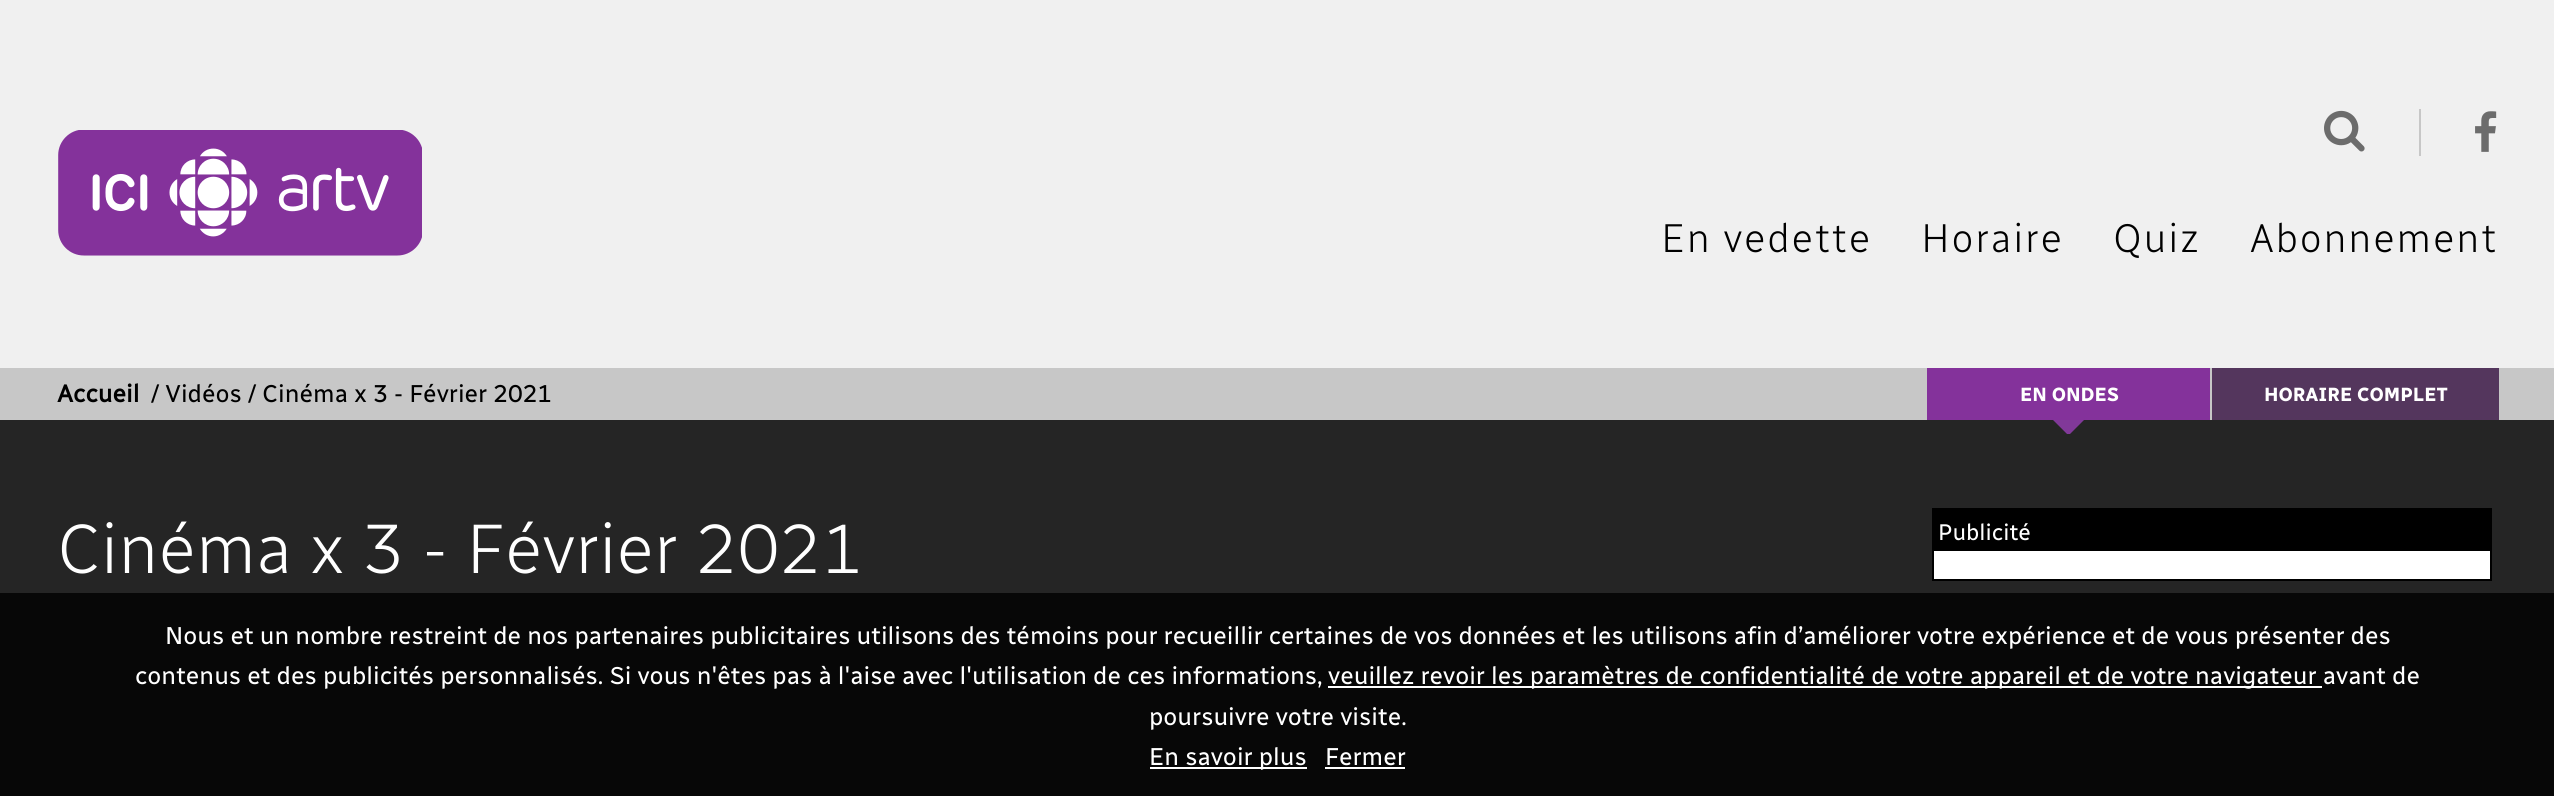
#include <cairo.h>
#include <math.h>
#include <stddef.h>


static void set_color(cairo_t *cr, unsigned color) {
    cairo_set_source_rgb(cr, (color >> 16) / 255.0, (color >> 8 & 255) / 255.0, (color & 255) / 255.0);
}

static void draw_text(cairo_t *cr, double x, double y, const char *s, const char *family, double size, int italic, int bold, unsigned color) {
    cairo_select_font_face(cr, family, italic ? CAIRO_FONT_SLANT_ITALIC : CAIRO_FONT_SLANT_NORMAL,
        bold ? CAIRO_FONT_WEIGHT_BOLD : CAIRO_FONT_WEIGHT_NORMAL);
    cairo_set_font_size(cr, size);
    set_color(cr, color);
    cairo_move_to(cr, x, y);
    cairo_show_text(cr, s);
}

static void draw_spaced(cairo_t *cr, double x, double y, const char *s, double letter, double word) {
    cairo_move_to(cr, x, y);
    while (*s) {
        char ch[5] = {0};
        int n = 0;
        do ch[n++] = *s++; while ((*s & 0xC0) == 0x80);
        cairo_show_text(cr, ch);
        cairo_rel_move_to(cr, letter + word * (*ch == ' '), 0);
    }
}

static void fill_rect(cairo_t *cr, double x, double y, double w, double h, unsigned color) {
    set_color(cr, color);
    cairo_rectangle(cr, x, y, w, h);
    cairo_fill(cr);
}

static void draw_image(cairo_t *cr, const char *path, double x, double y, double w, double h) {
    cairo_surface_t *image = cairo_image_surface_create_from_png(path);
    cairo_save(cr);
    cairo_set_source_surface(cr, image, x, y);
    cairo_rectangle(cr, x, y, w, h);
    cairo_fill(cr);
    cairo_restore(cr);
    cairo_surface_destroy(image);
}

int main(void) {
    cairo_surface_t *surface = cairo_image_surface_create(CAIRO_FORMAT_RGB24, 2554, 796);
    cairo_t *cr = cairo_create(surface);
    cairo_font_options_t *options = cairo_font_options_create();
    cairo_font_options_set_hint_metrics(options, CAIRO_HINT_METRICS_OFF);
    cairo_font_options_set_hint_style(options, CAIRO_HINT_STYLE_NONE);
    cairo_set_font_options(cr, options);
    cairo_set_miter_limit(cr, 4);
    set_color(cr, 0xF0F0F0);
    cairo_paint(cr);
    draw_image(cr, "assets/img1.png", 2324, 110, 41, 42);
    fill_rect(cr, 2419, 109, 2, 47, 0xC7C7C7);
    draw_image(cr, "assets/img2.png", 2475, 111, 22, 41);
    draw_image(cr, "assets/img3.png", 58, 130, 364, 126);
    cairo_select_font_face(cr, "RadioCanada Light", CAIRO_FONT_SLANT_NORMAL, CAIRO_FONT_WEIGHT_NORMAL);
    cairo_set_font_size(cr, 40.25);
    set_color(cr, 0x000000);
    draw_spaced(cr, 1661, 252, "En vedette", 1.75, 0);
    draw_spaced(cr, 1921, 252, "Horaire", 1.75, 0);
    draw_spaced(cr, 2113, 252, "Quiz", 1.75, 0);
    draw_spaced(cr, 2250, 252, "Abonnement", 1.75, 0);
    fill_rect(cr, 0, 368, 2554, 52, 0xC7C7C7);
    draw_text(cr, 57, 402, "Accueil", "RadioCanada", 24.5, 0, 1, 0x000000);
    draw_text(cr, 151, 402, "/ Vidéos / Cinéma x 3 - Février 2021", "RadioCanada", 24.5, 0, 0, 0x000000);
    fill_rect(cr, 1927, 368, 283, 52, 0x84329B);
    draw_text(cr, 2020, 401, "EN ONDES", "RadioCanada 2", 19.25, 0, 1, 0xFFFFFF);
    fill_rect(cr, 0, 420, 2554, 173, 0x252525);
    set_color(cr, 0x813999);
    cairo_new_path(cr);
    cairo_move_to(cr, 2053, 420);
    cairo_line_to(cr, 2084, 420);
    cairo_line_to(cr, 2070, 434);
    cairo_line_to(cr, 2067, 434);
    cairo_close_path(cr);
    cairo_fill(cr);
    fill_rect(cr, 2212, 368, 287, 52, 0x54365D);
    draw_text(cr, 2264, 401, "HORAIRE COMPLET", "RadioCanada 2", 19.25, 0, 1, 0xFFFFFF);
    draw_text(cr, 57, 573, "Cinéma x 3 - Février 2021", "RadioCanada Light", 70, 0, 0, 0xFFFFFF);
    fill_rect(cr, 1932, 508, 560, 73, 0x000000);
    draw_text(cr, 1938, 540, "Publicité", "RadioCanada", 22.75, 0, 0, 0xFFFFFF);
    fill_rect(cr, 1934, 551, 556, 28, 0xFFFFFF);
    fill_rect(cr, 0, 593, 2554, 203, 0x070707);
    draw_text(cr, 165, 644, "Nous et un nombre restreint de nos partenaires publicitaires utilisons des témoins pour recueillir certaines de vos données et les utilisons afin d’améliorer votre expérience et de vous présenter des", "RadioCanada", 24.5, 0, 0, 0xFFFFFF);
    draw_text(cr, 135, 684, "contenus et des publicités personnalisés. Si vous n'êtes pas à l'aise avec l'utilisation de ces informations,", "RadioCanada", 24.5, 0, 0, 0xFFFFFF);
    fill_rect(cr, 1328, 686, 994, 2, 0xFFFFFF);
    draw_text(cr, 1328, 684, "veuillez revoir les paramètres de confidentialité de votre appareil et de votre navigateur avant de", "RadioCanada", 24.5, 0, 0, 0xFFFFFF);
    draw_text(cr, 1149, 725, "poursuivre votre visite.", "RadioCanada", 24.5, 0, 0, 0xFFFFFF);
    fill_rect(cr, 1150, 767, 157, 2, 0xFFFFFF);
    draw_text(cr, 1149, 765, "En savoir plus", "RadioCanada", 24.5, 0, 0, 0xFFFFFF);
    draw_text(cr, 1325, 765, "Fermer", "RadioCanada", 24.5, 0, 0, 0xFFFFFF);
    fill_rect(cr, 1325, 767, 80, 2, 0xFFFFFF);
    cairo_surface_write_to_png(surface, "output.png");
    cairo_font_options_destroy(options);
    cairo_destroy(cr);
    cairo_surface_destroy(surface);
    return 0;
}
